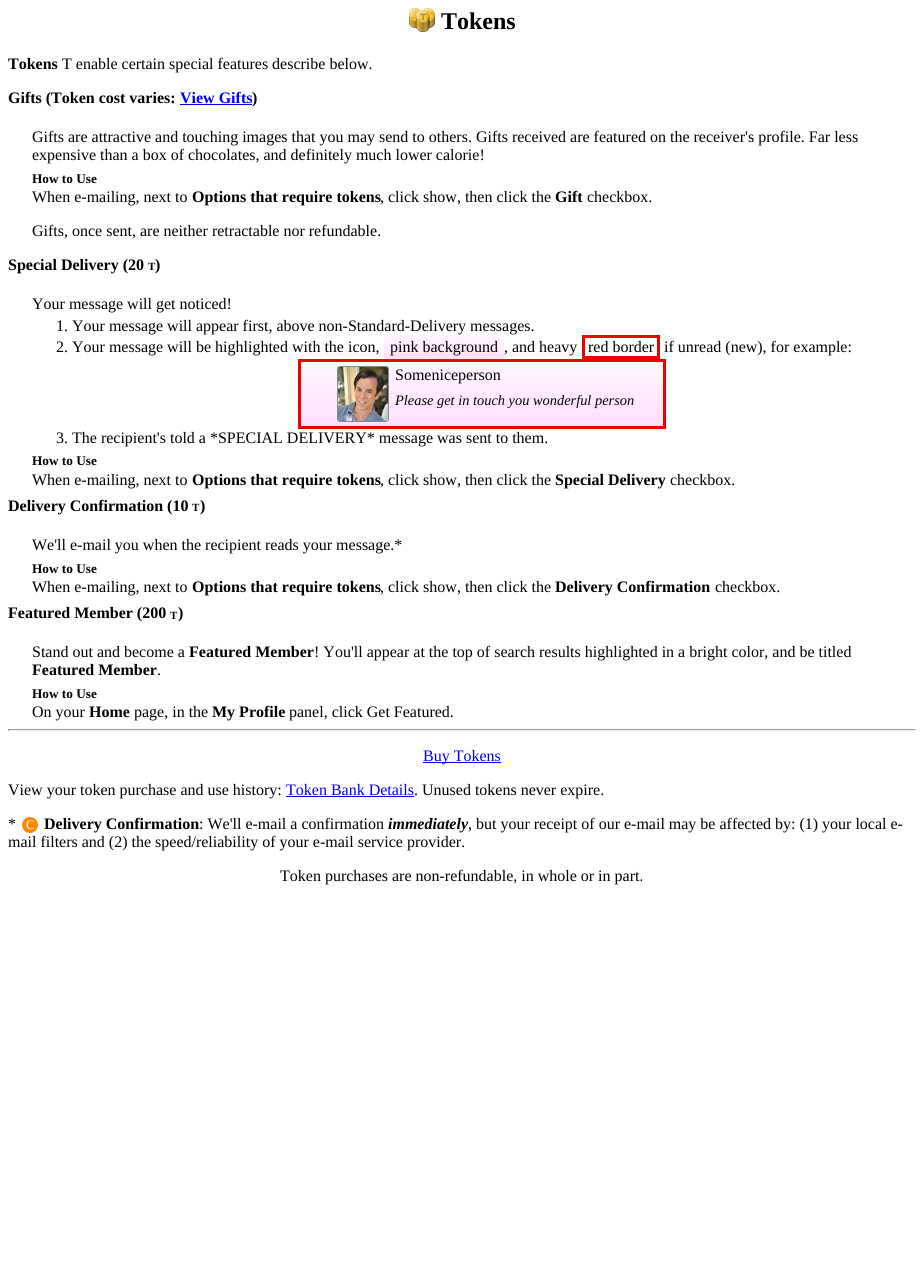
#include <cairo.h>
#include <math.h>
#include <stddef.h>


static void set_color(cairo_t *cr, unsigned color) {
    cairo_set_source_rgb(cr, (color >> 16) / 255.0, (color >> 8 & 255) / 255.0, (color & 255) / 255.0);
}

static void draw_text(cairo_t *cr, double x, double y, const char *s, const char *family, double size, int italic, int bold, unsigned color) {
    cairo_select_font_face(cr, family, italic ? CAIRO_FONT_SLANT_ITALIC : CAIRO_FONT_SLANT_NORMAL,
        bold ? CAIRO_FONT_WEIGHT_BOLD : CAIRO_FONT_WEIGHT_NORMAL);
    cairo_set_font_size(cr, size);
    set_color(cr, color);
    cairo_move_to(cr, x, y);
    cairo_show_text(cr, s);
}

static void fill_rect(cairo_t *cr, double x, double y, double w, double h, unsigned color) {
    set_color(cr, color);
    cairo_rectangle(cr, x, y, w, h);
    cairo_fill(cr);
}

static void rounded_rect(cairo_t *cr, double x, double y, double w, double h, double r) {
    cairo_new_sub_path(cr);
    cairo_arc(cr, x + w - r, y + h - r, r, 0, M_PI / 2);
    cairo_arc(cr, x + r, y + h - r, r, M_PI / 2, M_PI);
    cairo_arc(cr, x + r, y + r, r, M_PI, 1.5 * M_PI);
    cairo_arc(cr, x + w - r, y + r, r, 1.5 * M_PI, 2 * M_PI);
    cairo_close_path(cr);
}

static void draw_image(cairo_t *cr, const char *path, double x, double y, double w, double h) {
    cairo_surface_t *image = cairo_image_surface_create_from_png(path);
    cairo_save(cr);
    cairo_set_source_surface(cr, image, x, y);
    cairo_rectangle(cr, x, y, w, h);
    cairo_fill(cr);
    cairo_restore(cr);
    cairo_surface_destroy(image);
}

int main(void) {
    cairo_surface_t *surface = cairo_image_surface_create(CAIRO_FORMAT_RGB24, 924, 1275);
    cairo_t *cr = cairo_create(surface);
    cairo_font_options_t *options = cairo_font_options_create();
    cairo_font_options_set_hint_metrics(options, CAIRO_HINT_METRICS_OFF);
    cairo_font_options_set_hint_style(options, CAIRO_HINT_STYLE_NONE);
    cairo_set_font_options(cr, options);
    cairo_set_miter_limit(cr, 4);
    cairo_pattern_t *gradient;
    set_color(cr, 0xFFFFFF);
    cairo_paint(cr);
    draw_image(cr, "assets/img1.png", 409, 8, 26, 24);
    draw_text(cr, 441, 29, "Tokens", "Liberation Serif", 24, 0, 1, 0x000000);
    draw_text(cr, 8, 69, "Tokens", "Liberation Serif", 16, 0, 1, 0x000000);
    draw_text(cr, 62, 69, "T enable certain special features describe below.", "Liberation Serif", 16, 0, 0, 0x000000);
    draw_text(cr, 8, 103, "Gifts (Token cost varies:", "Liberation Serif", 16, 0, 1, 0x000000);
    draw_text(cr, 180, 103, "View Gifts", "Liberation Serif", 16, 0, 1, 0x0000EE);
    fill_rect(cr, 180, 104, 72, 1, 0x0000EE);
    draw_text(cr, 252, 103, ")", "Liberation Serif", 16, 0, 1, 0x000000);
    draw_text(cr, 32, 142, "Gifts are attractive and touching images that you may send to others. Gifts received are featured on the receiver's profile. Far less", "Liberation Serif", 16, 0, 0, 0x000000);
    draw_text(cr, 32, 160, "expensive than a box of chocolates, and definitely much lower calorie!", "Liberation Serif", 16, 0, 0, 0x000000);
    draw_text(cr, 32, 183, "How to Use", "Liberation Serif", 13.25, 0, 1, 0x000000);
    draw_text(cr, 32, 202, "When e-mailing, next to", "Liberation Serif", 16, 0, 0, 0x000000);
    draw_text(cr, 192, 202, "Options that require tokens", "Liberation Serif", 16, 0, 1, 0x000000);
    draw_text(cr, 380, 202, ", click show, then click the", "Liberation Serif", 16, 0, 0, 0x000000);
    draw_text(cr, 555, 202, "Gift", "Liberation Serif", 16, 0, 1, 0x000000);
    draw_text(cr, 587, 202, "checkbox.", "Liberation Serif", 16, 0, 0, 0x000000);
    draw_text(cr, 32, 236, "Gifts, once sent, are neither retractable nor refundable.", "Liberation Serif", 16, 0, 0, 0x000000);
    draw_text(cr, 8, 270, "Special Delivery (20", "Liberation Serif", 16, 0, 1, 0x000000);
    draw_text(cr, 148, 270, "T", "Liberation Serif", 11, 0, 1, 0x000000);
    draw_text(cr, 155, 270, ")", "Liberation Serif", 16, 0, 1, 0x000000);
    draw_text(cr, 32, 309, "Your message will get noticed!", "Liberation Serif", 16, 0, 0, 0x000000);
    draw_text(cr, 56, 331, "1. Your message will appear first, above non-Standard-Delivery messages.", "Liberation Serif", 16, 0, 0, 0x000000);
    draw_text(cr, 56, 352, "2. Your message will be highlighted with the icon,", "Liberation Serif", 16, 0, 0, 0x000000);
    gradient = cairo_pattern_create_linear(444, 335, 444, 359);
    cairo_pattern_add_color_stop_rgba(gradient, 0, 1, 0.965, 1, 1);
    cairo_pattern_add_color_stop_rgba(gradient, 1, 1, 0.878, 1, 1);
    cairo_set_source(cr, gradient);
    cairo_pattern_destroy(gradient);
    cairo_rectangle(cr, 384, 335, 120, 24);
    cairo_fill(cr);
    draw_text(cr, 390, 352, "pink background", "Liberation Serif", 16, 0, 0, 0x000000);
    draw_text(cr, 504, 352, ", and heavy", "Liberation Serif", 16, 0, 0, 0x000000);
    cairo_rectangle(cr, 583.5, 336.5, 75, 21);
    set_color(cr, 0xEE0000);
    cairo_set_line_width(cr, 3);
    cairo_stroke(cr);
    draw_text(cr, 588, 352, "red border", "Liberation Serif", 16, 0, 0, 0x000000);
    draw_text(cr, 664, 352, "if unread (new), for example:", "Liberation Serif", 16, 0, 0, 0x000000);
    gradient = cairo_pattern_create_linear(482, 362, 482, 426);
    cairo_pattern_add_color_stop_rgba(gradient, 0, 1, 0.965, 1, 1);
    cairo_pattern_add_color_stop_rgba(gradient, 1, 1, 0.878, 1, 1);
    cairo_set_source(cr, gradient);
    cairo_pattern_destroy(gradient);
    cairo_rectangle(cr, 301, 362, 362, 64);
    cairo_fill(cr);
    cairo_rectangle(cr, 299.5, 360.5, 365, 67);
    set_color(cr, 0xEE0000);
    cairo_stroke(cr);
    rounded_rect(cr, 337.5, 366.5, 51, 55, 2.5);
    set_color(cr, 0x888888);
    cairo_set_line_width(cr, 1);
    cairo_stroke(cr);
    draw_image(cr, "assets/img2.png", 338, 367, 50, 54);
    draw_text(cr, 395, 380, "Someniceperson", "Liberation Serif", 16, 0, 0, 0x000000);
    draw_text(cr, 395, 405, "Please get in touch you wonderful person", "Liberation Serif", 14.4, 1, 0, 0x000000);
    draw_text(cr, 56, 443, "3. The recipient's told a *SPECIAL DELIVERY* message was sent to them.", "Liberation Serif", 16, 0, 0, 0x000000);
    draw_text(cr, 32, 465, "How to Use", "Liberation Serif", 13.25, 0, 1, 0x000000);
    draw_text(cr, 32, 485, "When e-mailing, next to", "Liberation Serif", 16, 0, 0, 0x000000);
    draw_text(cr, 192, 485, "Options that require tokens", "Liberation Serif", 16, 0, 1, 0x000000);
    draw_text(cr, 380, 485, ", click show, then click the", "Liberation Serif", 16, 0, 0, 0x000000);
    draw_text(cr, 555, 485, "Special Delivery", "Liberation Serif", 16, 0, 1, 0x000000);
    draw_text(cr, 670, 485, "checkbox.", "Liberation Serif", 16, 0, 0, 0x000000);
    draw_text(cr, 8, 511, "Delivery Confirmation (10", "Liberation Serif", 16, 0, 1, 0x000000);
    draw_text(cr, 192, 511, "T", "Liberation Serif", 11, 0, 1, 0x000000);
    draw_text(cr, 200, 511, ")", "Liberation Serif", 16, 0, 1, 0x000000);
    draw_text(cr, 32, 550, "We'll e-mail you when the recipient reads your message.*", "Liberation Serif", 16, 0, 0, 0x000000);
    draw_text(cr, 32, 573, "How to Use", "Liberation Serif", 13.25, 0, 1, 0x000000);
    draw_text(cr, 32, 592, "When e-mailing, next to", "Liberation Serif", 16, 0, 0, 0x000000);
    draw_text(cr, 192, 592, "Options that require tokens", "Liberation Serif", 16, 0, 1, 0x000000);
    draw_text(cr, 380, 592, ", click show, then click the", "Liberation Serif", 16, 0, 0, 0x000000);
    draw_text(cr, 555, 592, "Delivery Confirmation", "Liberation Serif", 16, 0, 1, 0x000000);
    draw_text(cr, 715, 592, "checkbox.", "Liberation Serif", 16, 0, 0, 0x000000);
    draw_text(cr, 8, 618, "Featured Member (200", "Liberation Serif", 16, 0, 1, 0x000000);
    draw_text(cr, 170, 619, "T", "Liberation Serif", 11, 0, 1, 0x000000);
    draw_text(cr, 178, 618, ")", "Liberation Serif", 16, 0, 1, 0x000000);
    draw_text(cr, 32, 657, "Stand out and become a", "Liberation Serif", 16, 0, 0, 0x000000);
    draw_text(cr, 189, 657, "Featured Member", "Liberation Serif", 16, 0, 1, 0x000000);
    draw_text(cr, 314, 657, "! You'll appear at the top of search results highlighted in a bright color, and be titled", "Liberation Serif", 16, 0, 0, 0x000000);
    draw_text(cr, 32, 675, "Featured Member", "Liberation Serif", 16, 0, 1, 0x000000);
    draw_text(cr, 157, 675, ".", "Liberation Serif", 16, 0, 0, 0x000000);
    draw_text(cr, 32, 698, "How to Use", "Liberation Serif", 13.25, 0, 1, 0x000000);
    draw_text(cr, 32, 717, "On your", "Liberation Serif", 16, 0, 0, 0x000000);
    draw_text(cr, 89, 717, "Home", "Liberation Serif", 16, 0, 1, 0x000000);
    draw_text(cr, 134, 717, "page, in the", "Liberation Serif", 16, 0, 0, 0x000000);
    draw_text(cr, 212, 717, "My Profile", "Liberation Serif", 16, 0, 1, 0x000000);
    draw_text(cr, 289, 717, "panel, click Get Featured.", "Liberation Serif", 16, 0, 0, 0x000000);
    fill_rect(cr, 8, 729, 908, 1, 0x9F9F9F);
    fill_rect(cr, 915, 729, 1, 2, 0xEEEEEE);
    fill_rect(cr, 8, 730, 908, 1, 0xEEEEEE);
    fill_rect(cr, 8, 729, 1, 2, 0x9F9F9F);
    fill_rect(cr, 423, 762, 78, 1, 0x0000EE);
    draw_text(cr, 423, 761, "Buy Tokens", "Liberation Serif", 16, 0, 0, 0x0000EE);
    draw_text(cr, 8, 795, "View your token purchase and use history:", "Liberation Serif", 16, 0, 0, 0x000000);
    draw_text(cr, 286, 795, "Token Bank Details", "Liberation Serif", 16, 0, 0, 0x0000EE);
    fill_rect(cr, 286, 796, 128, 1, 0x0000EE);
    draw_text(cr, 414, 795, ". Unused tokens never expire.", "Liberation Serif", 16, 0, 0, 0x000000);
    draw_text(cr, 8, 829, "*", "Liberation Serif", 16, 0, 0, 0x000000);
    set_color(cr, 0xFF8800);
    cairo_new_path(cr);
    cairo_arc(cr, 30, 825, 8, 0, 2 * M_PI);
    cairo_fill(cr);
    draw_text(cr, 26, 829, "C", "Liberation Serif", 13, 0, 0, 0xFFFFFF);
    draw_text(cr, 44, 829, "Delivery Confirmation", "Liberation Serif", 16, 0, 1, 0x000000);
    draw_text(cr, 199, 829, ": We'll e-mail a confirmation", "Liberation Serif", 16, 0, 0, 0x000000);
    draw_text(cr, 388, 829, "immediately", "Liberation Serif", 16, 1, 1, 0x000000);
    draw_text(cr, 468, 829, ", but your receipt of our e-mail may be affected by: (1) your local e-", "Liberation Serif", 16, 0, 0, 0x000000);
    draw_text(cr, 8, 847, "mail filters and (2) the speed/reliability of your e-mail service provider.", "Liberation Serif", 16, 0, 0, 0x000000);
    draw_text(cr, 280, 881, "Token purchases are non-refundable, in whole or in part.", "Liberation Serif", 16, 0, 0, 0x000000);
    cairo_surface_write_to_png(surface, "output.png");
    cairo_font_options_destroy(options);
    cairo_destroy(cr);
    cairo_surface_destroy(surface);
    return 0;
}
